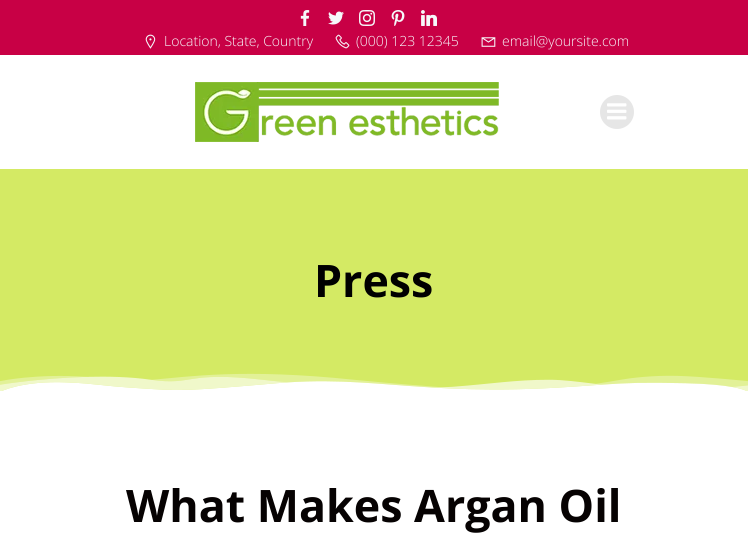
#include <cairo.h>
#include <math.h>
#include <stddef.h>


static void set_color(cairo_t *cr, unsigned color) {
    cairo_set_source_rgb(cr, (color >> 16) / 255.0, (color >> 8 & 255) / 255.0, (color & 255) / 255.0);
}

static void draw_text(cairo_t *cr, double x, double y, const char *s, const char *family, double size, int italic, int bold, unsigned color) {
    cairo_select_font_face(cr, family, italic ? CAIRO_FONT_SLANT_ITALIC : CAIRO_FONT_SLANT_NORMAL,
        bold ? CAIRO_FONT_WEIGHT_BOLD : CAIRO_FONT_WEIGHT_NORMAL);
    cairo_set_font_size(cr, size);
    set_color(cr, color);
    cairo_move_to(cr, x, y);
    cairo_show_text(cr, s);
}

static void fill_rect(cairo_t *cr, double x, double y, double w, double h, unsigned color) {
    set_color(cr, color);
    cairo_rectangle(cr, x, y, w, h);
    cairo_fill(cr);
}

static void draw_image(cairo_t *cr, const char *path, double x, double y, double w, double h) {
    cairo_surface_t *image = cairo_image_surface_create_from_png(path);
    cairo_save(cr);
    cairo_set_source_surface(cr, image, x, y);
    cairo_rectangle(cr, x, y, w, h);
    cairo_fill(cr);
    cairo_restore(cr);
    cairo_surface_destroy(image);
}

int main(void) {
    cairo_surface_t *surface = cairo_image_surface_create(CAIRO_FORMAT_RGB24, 748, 556);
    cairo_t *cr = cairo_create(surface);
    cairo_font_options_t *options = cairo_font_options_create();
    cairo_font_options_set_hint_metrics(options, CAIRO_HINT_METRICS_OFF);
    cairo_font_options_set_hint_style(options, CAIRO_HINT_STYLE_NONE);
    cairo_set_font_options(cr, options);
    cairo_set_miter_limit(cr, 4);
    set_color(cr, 0xFFFFFF);
    cairo_paint(cr);
    fill_rect(cr, 0, 0, 748, 55, 0xC80045);
    draw_image(cr, "assets/img1.png", 300, 10, 10, 16);
    draw_image(cr, "assets/img2.png", 328, 11, 16, 14);
    draw_image(cr, "assets/img3.png", 359, 10, 16, 16);
    draw_image(cr, "assets/img4.png", 391, 10, 14, 16);
    draw_image(cr, "assets/img5.png", 421, 10, 16, 16);
    draw_image(cr, "assets/img6.png", 145, 34, 11, 15);
    draw_text(cr, 164, 46, "Location, State, Country", "Open Sans Light", 14, 0, 0, 0xF6F8FA);
    draw_image(cr, "assets/img7.png", 335, 34, 15, 15);
    draw_text(cr, 356, 46, "(000) 123 12345", "Open Sans Light", 14, 0, 0, 0xF6F8FA);
    draw_image(cr, "assets/img8.png", 481, 37, 15, 10);
    draw_text(cr, 502, 46, "email@yoursite.com", "Open Sans Light", 14, 0, 0, 0xF6F8FA);
    draw_image(cr, "assets/img9.png", 195, 82, 304, 60);
    set_color(cr, 0xE6E6E6);
    cairo_arc(cr, 617, 112, 17, 0, 2 * M_PI);
    cairo_fill(cr);
    draw_image(cr, "assets/img10.png", 607, 103, 20, 17);
    fill_rect(cr, 0, 169, 748, 222, 0xD4EA64);
    draw_text(cr, 314, 297, "Press", "Open Sans", 44.75, 0, 1, 0x000000);
    draw_image(cr, "assets/img11.png", 0, 373, 748, 18);
    draw_text(cr, 126, 522, "What Makes Argan Oil", "Open Sans", 44.75, 0, 1, 0x060202);
    cairo_surface_write_to_png(surface, "output.png");
    cairo_font_options_destroy(options);
    cairo_destroy(cr);
    cairo_surface_destroy(surface);
    return 0;
}
